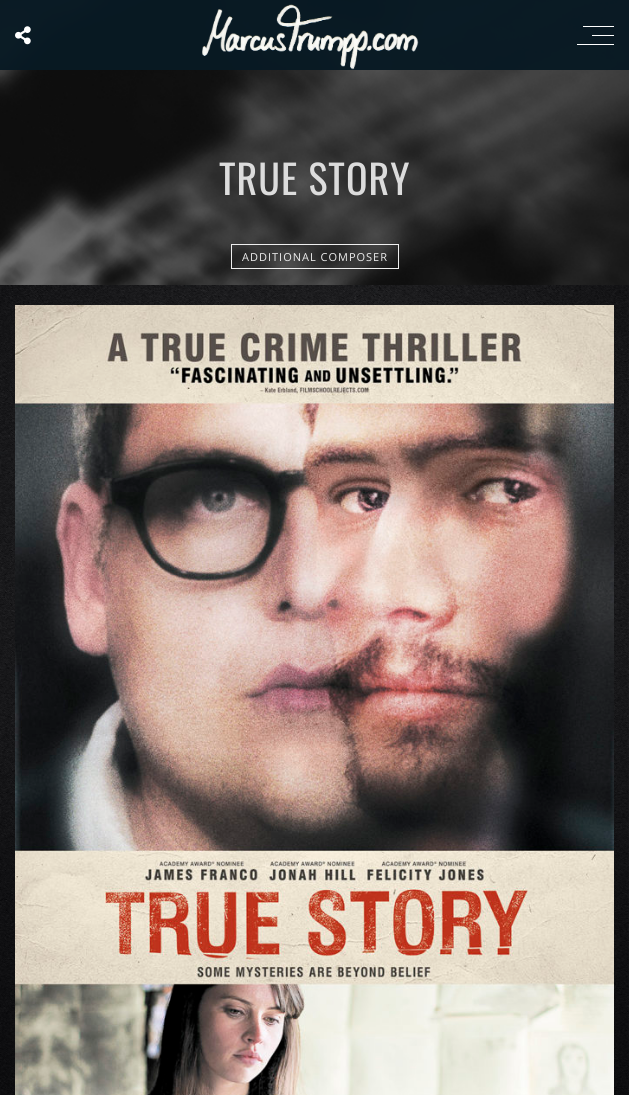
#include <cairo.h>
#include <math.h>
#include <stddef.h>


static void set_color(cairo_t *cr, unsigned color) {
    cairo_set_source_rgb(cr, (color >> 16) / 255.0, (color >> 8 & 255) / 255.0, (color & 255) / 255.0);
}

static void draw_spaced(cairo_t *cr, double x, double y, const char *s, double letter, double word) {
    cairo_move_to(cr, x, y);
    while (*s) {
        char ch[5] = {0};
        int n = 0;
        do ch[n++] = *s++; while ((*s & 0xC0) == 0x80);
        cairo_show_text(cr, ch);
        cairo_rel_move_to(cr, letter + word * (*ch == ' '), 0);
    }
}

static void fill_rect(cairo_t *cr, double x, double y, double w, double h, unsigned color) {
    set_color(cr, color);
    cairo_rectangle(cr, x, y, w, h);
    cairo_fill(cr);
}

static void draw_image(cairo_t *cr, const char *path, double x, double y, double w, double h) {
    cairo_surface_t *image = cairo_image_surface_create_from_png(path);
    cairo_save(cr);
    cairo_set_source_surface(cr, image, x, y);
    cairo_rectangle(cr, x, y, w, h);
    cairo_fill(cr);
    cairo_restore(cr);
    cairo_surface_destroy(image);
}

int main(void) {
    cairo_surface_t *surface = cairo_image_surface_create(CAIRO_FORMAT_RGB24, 629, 1095);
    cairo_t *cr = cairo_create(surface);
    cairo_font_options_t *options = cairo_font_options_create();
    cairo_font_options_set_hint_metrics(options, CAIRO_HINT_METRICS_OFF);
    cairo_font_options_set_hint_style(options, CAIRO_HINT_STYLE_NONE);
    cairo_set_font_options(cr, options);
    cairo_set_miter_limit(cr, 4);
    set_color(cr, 0xFFFFFF);
    cairo_paint(cr);
    draw_image(cr, "assets/img1.png", 628, 285, 1, 810);
    draw_image(cr, "assets/img4.png", 0, 0, 629, 285);
    cairo_set_source_rgba(cr, 0.031, 0.102, 0.141, 0.8);
    cairo_rectangle(cr, 0, 0, 629, 70);
    cairo_fill(cr);
    cairo_rectangle(cr, 0, 0, 629, 70);
    cairo_fill(cr);
    draw_image(cr, "assets/img2.png", 15, 26, 16, 19);
    draw_image(cr, "assets/img3.png", 202, 4, 217, 66);
    fill_rect(cr, 583, 26, 31, 1, 0xFFFFFF);
    fill_rect(cr, 592, 35, 22, 1, 0xFFFFFF);
    fill_rect(cr, 577, 44, 37, 1, 0xFFFFFF);
    cairo_select_font_face(cr, "Oswald", CAIRO_FONT_SLANT_NORMAL, CAIRO_FONT_WEIGHT_NORMAL);
    cairo_set_font_size(cr, 40);
    set_color(cr, 0xDCDCDC);
    draw_spaced(cr, 219, 195, "TRUE STORY", 1, 0);
    cairo_rectangle(cr, 231.5, 244.5, 167, 24);
    set_color(cr, 0xEEEEEE);
    cairo_set_line_width(cr, 1);
    cairo_stroke(cr);
    cairo_select_font_face(cr, "Open Sans", CAIRO_FONT_SLANT_NORMAL, CAIRO_FONT_WEIGHT_NORMAL);
    cairo_set_font_size(cr, 11);
    draw_spaced(cr, 242, 261, "ADDITIONAL COMPOSER", 1, 0);
    draw_image(cr, "assets/img5.png", 0, 285, 629, 810);
    draw_image(cr, "assets/img6.png", 15, 305, 599, 790);
    cairo_surface_write_to_png(surface, "output.png");
    cairo_font_options_destroy(options);
    cairo_destroy(cr);
    cairo_surface_destroy(surface);
    return 0;
}
